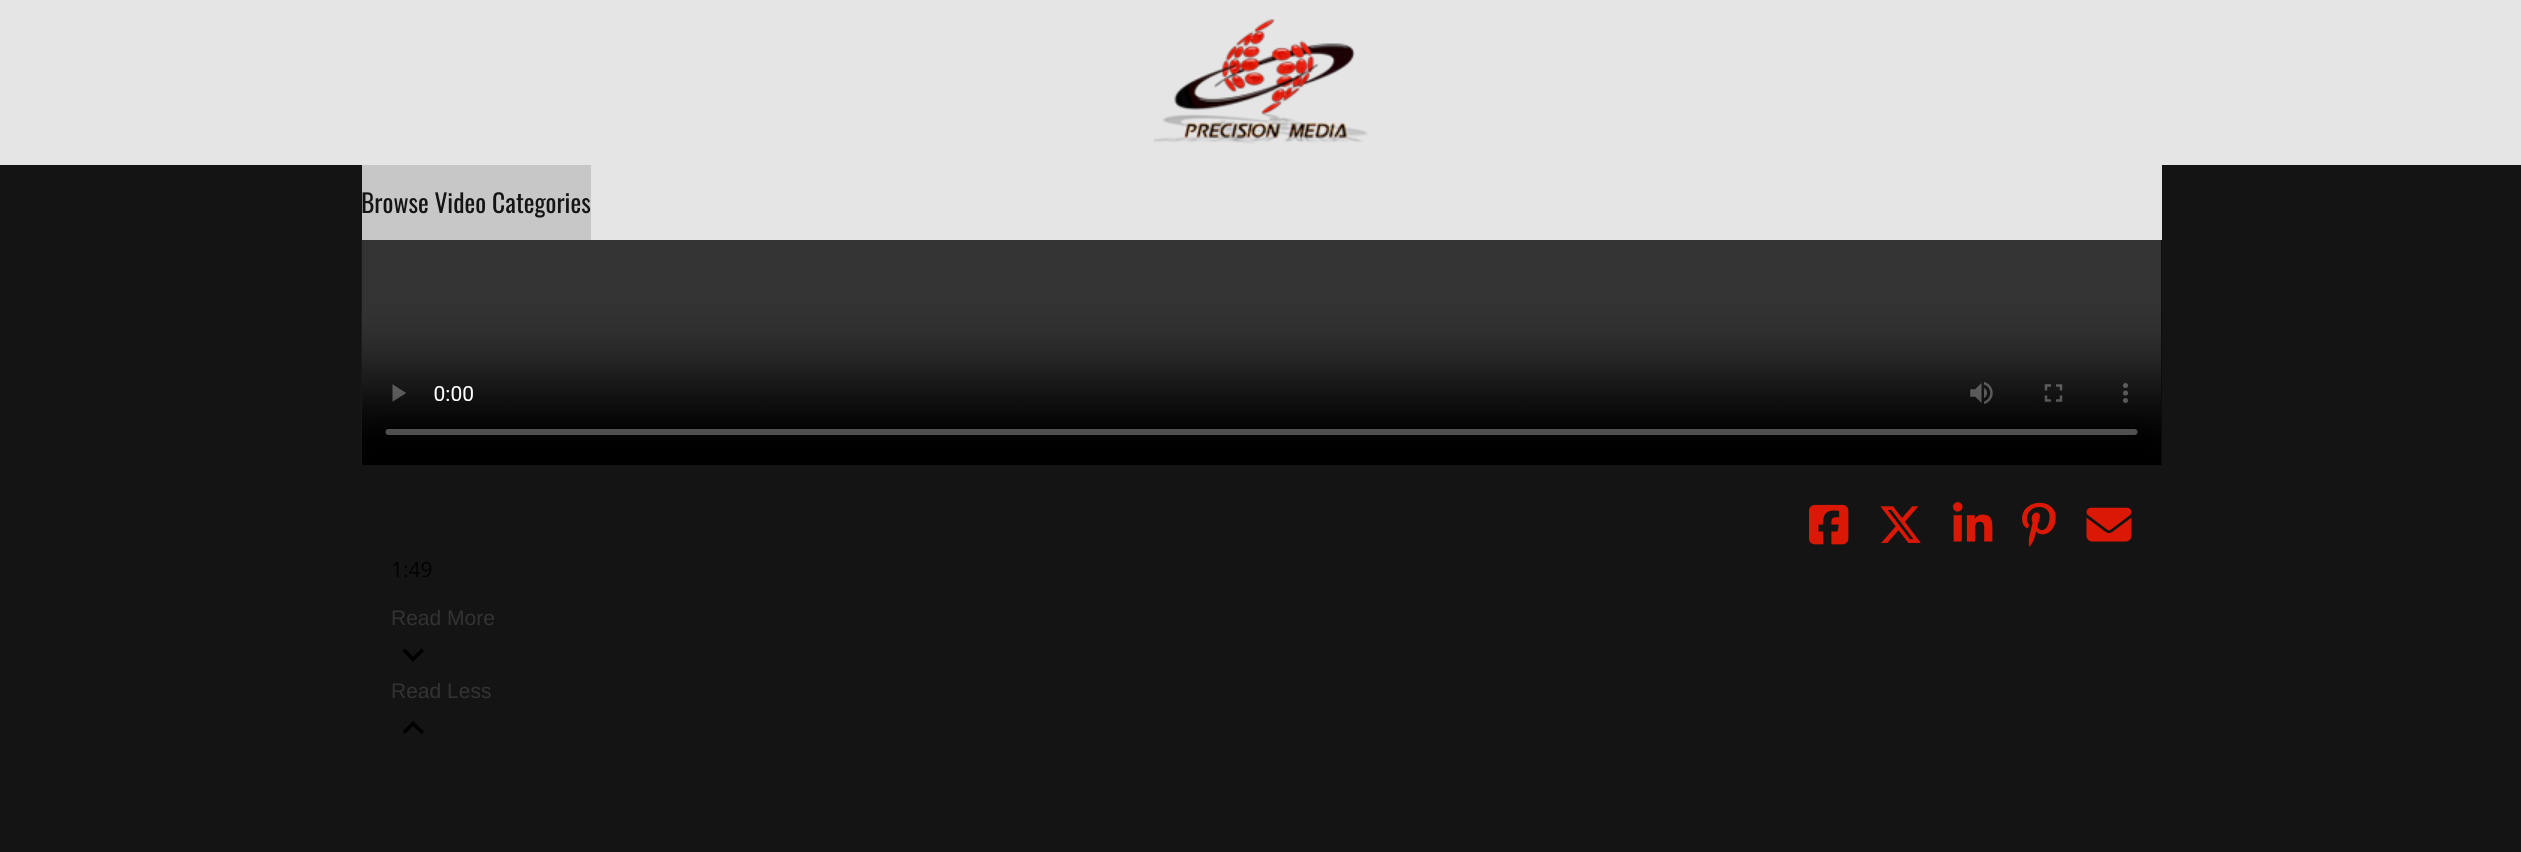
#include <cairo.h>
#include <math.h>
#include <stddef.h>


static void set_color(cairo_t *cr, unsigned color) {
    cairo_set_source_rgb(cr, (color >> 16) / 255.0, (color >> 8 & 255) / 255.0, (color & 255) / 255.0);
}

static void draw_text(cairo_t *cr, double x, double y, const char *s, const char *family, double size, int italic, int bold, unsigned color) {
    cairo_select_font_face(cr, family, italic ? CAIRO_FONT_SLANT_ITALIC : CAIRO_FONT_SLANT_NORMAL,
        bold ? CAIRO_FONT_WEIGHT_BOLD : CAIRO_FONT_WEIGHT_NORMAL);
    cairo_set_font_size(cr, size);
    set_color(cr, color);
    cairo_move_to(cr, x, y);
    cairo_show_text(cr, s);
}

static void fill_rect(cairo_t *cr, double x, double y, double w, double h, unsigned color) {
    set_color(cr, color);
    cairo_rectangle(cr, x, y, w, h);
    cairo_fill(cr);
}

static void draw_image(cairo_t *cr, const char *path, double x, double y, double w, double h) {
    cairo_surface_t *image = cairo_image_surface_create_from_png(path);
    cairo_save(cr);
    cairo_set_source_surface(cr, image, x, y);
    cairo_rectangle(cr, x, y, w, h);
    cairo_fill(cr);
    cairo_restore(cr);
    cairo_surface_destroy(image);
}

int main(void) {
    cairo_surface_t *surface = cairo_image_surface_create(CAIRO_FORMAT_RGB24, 2521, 852);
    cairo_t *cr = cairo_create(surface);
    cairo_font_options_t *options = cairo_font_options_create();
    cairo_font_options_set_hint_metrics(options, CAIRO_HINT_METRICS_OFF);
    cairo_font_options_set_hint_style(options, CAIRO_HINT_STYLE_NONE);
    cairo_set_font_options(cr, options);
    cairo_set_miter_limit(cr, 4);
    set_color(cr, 0x141414);
    cairo_paint(cr);
    fill_rect(cr, 0, 0, 2521, 165, 0xE5E5E5);
    draw_image(cr, "assets/img1.png", 1153, 19, 215, 125);
    fill_rect(cr, 591, 165, 1571, 75, 0xE5E5E5);
    fill_rect(cr, 362, 165, 229, 75, 0xC7C7C7);
    draw_text(cr, 361, 213, "Browse Video Categories", "Oswald", 25.5, 0, 0, 0x141414);
    fill_rect(cr, 2161, 240, 1, 225, 0x000000);
    draw_image(cr, "assets/img2.png", 361, 240, 1801, 225);
    draw_image(cr, "assets/img3.png", 1809, 504, 40, 41);
    draw_image(cr, "assets/img4.png", 1880, 506, 41, 37);
    draw_image(cr, "assets/img5.png", 1953, 502, 40, 40);
    draw_image(cr, "assets/img6.png", 2022, 502, 34, 45);
    draw_image(cr, "assets/img7.png", 2086, 507, 46, 35);
    draw_text(cr, 391, 577, "1:49", "Open Sans", 21, 0, 0, 0x020202);
    draw_text(cr, 391, 625, "Read More", "Liberation Sans", 21, 0, 0, 0x333333);
    set_color(cr, 0x000000);
    cairo_new_path(cr);
    cairo_move_to(cr, 405, 648.5);
    cairo_line_to(cr, 413, 656.5);
    cairo_line_to(cr, 421.5, 648.5);
    cairo_line_to(cr, 424, 651);
    cairo_line_to(cr, 413, 662);
    cairo_line_to(cr, 402.5, 651);
    cairo_close_path(cr);
    cairo_fill(cr);
    draw_text(cr, 391, 698, "Read Less", "Liberation Sans", 21, 0, 0, 0x333333);
    set_color(cr, 0x000000);
    cairo_new_path(cr);
    cairo_move_to(cr, 405, 734);
    cairo_line_to(cr, 413, 726);
    cairo_line_to(cr, 421.5, 734);
    cairo_line_to(cr, 424, 731.5);
    cairo_line_to(cr, 413, 721);
    cairo_line_to(cr, 402.5, 731.5);
    cairo_close_path(cr);
    cairo_fill(cr);
    cairo_surface_write_to_png(surface, "output.png");
    cairo_font_options_destroy(options);
    cairo_destroy(cr);
    cairo_surface_destroy(surface);
    return 0;
}
